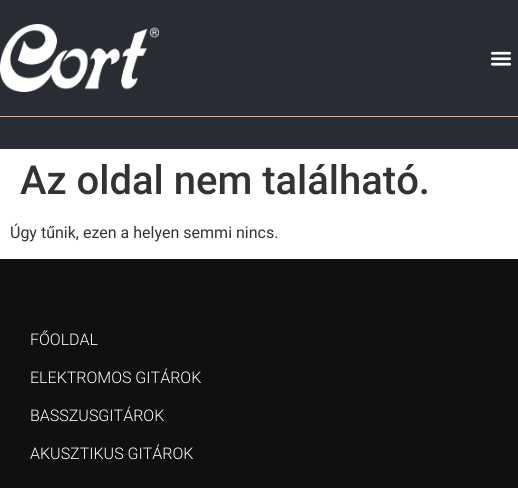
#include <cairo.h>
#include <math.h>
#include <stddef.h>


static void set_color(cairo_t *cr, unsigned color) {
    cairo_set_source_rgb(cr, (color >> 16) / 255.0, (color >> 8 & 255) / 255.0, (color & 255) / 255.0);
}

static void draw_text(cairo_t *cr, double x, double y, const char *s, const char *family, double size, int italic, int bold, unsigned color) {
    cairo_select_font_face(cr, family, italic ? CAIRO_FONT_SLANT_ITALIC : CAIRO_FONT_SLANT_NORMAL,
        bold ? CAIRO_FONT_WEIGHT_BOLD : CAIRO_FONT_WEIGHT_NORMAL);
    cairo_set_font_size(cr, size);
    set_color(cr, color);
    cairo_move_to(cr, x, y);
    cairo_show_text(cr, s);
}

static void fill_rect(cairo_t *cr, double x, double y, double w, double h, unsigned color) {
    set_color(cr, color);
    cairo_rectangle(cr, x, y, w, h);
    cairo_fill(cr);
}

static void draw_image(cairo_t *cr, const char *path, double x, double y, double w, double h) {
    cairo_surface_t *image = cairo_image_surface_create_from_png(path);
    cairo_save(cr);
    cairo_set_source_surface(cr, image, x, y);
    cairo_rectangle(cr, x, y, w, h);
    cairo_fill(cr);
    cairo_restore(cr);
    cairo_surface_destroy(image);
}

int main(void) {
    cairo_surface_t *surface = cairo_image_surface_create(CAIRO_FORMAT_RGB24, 518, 488);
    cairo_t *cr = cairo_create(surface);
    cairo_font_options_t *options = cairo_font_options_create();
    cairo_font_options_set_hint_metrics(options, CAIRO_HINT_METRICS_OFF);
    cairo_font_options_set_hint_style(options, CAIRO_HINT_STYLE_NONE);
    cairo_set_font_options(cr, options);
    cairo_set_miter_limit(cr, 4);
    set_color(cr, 0xFFFFFF);
    cairo_paint(cr);
    fill_rect(cr, 0, 0, 518, 149, 0x292C33);
    fill_rect(cr, 0, 116, 518, 1, 0xCCB19E);
    draw_image(cr, "assets/img1.png", 0, 24, 159, 68);
    draw_image(cr, "assets/img2.png", 490, 51, 22, 15);
    draw_text(cr, 20, 194, "Az oldal nem található.", "Roboto Medium", 40, 0, 0, 0x333333);
    draw_text(cr, 10, 238, "Úgy tűnik, ezen a helyen semmi nincs.", "Roboto", 16, 0, 0, 0x333333);
    fill_rect(cr, 0, 259, 518, 229, 0x101010);
    draw_text(cr, 30, 345, "FŐOLDAL", "Roboto Light", 16, 0, 0, 0xFFFFFF);
    draw_text(cr, 30, 383, "ELEKTROMOS GITÁROK", "Roboto Light", 16, 0, 0, 0xFFFFFF);
    draw_text(cr, 30, 421, "BASSZUSGITÁROK", "Roboto Light", 16, 0, 0, 0xFFFFFF);
    draw_text(cr, 30, 459, "AKUSZTIKUS GITÁROK", "Roboto Light", 16, 0, 0, 0xFFFFFF);
    cairo_surface_write_to_png(surface, "output.png");
    cairo_font_options_destroy(options);
    cairo_destroy(cr);
    cairo_surface_destroy(surface);
    return 0;
}
